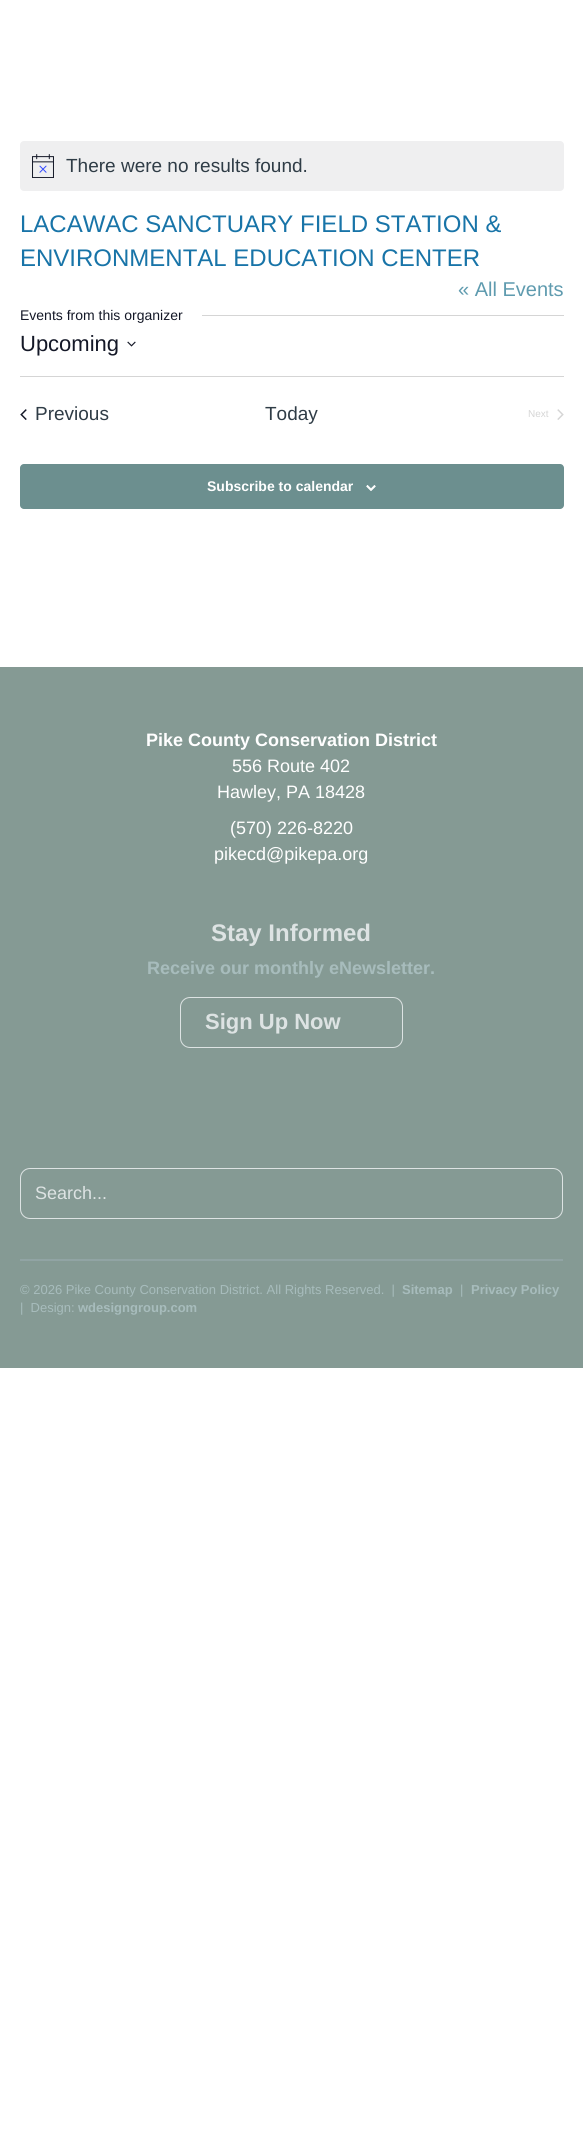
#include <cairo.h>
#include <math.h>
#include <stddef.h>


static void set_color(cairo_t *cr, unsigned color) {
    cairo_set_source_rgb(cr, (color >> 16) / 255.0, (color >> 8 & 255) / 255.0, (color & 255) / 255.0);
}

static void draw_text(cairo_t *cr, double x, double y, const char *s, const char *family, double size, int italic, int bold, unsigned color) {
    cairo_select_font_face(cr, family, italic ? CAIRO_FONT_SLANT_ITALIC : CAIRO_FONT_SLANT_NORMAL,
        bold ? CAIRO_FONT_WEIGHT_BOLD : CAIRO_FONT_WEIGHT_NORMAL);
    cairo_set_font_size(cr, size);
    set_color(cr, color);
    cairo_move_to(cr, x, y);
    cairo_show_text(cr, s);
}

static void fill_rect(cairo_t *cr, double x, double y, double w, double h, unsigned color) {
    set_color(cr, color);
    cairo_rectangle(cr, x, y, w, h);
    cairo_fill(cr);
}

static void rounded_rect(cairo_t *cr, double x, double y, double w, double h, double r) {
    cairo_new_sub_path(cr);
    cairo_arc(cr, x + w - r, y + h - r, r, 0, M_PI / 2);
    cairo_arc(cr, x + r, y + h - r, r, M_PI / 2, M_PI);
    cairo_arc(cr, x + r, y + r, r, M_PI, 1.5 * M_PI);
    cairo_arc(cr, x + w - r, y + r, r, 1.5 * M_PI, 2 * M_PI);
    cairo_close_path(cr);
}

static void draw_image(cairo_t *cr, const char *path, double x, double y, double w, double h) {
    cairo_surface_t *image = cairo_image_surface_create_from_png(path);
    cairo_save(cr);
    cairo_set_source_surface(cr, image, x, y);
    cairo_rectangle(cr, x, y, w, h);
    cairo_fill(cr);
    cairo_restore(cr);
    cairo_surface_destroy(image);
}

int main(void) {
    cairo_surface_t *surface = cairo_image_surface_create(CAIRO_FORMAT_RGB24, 583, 2136);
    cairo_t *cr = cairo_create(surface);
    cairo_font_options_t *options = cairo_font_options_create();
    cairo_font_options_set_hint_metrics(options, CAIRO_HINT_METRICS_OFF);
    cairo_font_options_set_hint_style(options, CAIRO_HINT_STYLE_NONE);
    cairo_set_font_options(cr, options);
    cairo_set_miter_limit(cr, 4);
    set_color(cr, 0xFFFFFF);
    cairo_paint(cr);
    set_color(cr, 0xEFEFF0);
    rounded_rect(cr, 20, 141, 544, 50, 4);
    cairo_fill(cr);
    draw_image(cr, "assets/img1.png", 32, 154, 22, 24);
    draw_text(cr, 66, 172, "There were no results found.", "Liberation Sans", 19, 0, 0, 0x2F3C46);
    draw_text(cr, 20, 232, "LACAWAC SANCTUARY FIELD STATION &", "Liberation Sans", 24, 0, 0, 0x1874A8);
    draw_text(cr, 20, 266, "ENVIRONMENTAL EDUCATION CENTER", "Liberation Sans", 24, 0, 0, 0x1874A8);
    draw_text(cr, 458, 296, "« All Events", "Liberation Sans", 20, 0, 0, 0x5F9BAF);
    draw_text(cr, 20, 320, "Events from this organizer", "Liberation Sans", 14, 0, 0, 0x141827);
    fill_rect(cr, 202, 315, 362, 1, 0xD5D5D5);
    draw_text(cr, 20, 351, "Upcoming", "Liberation Sans", 22, 0, 0, 0x141827);
    draw_image(cr, "assets/img2.png", 127, 341, 9, 6);
    fill_rect(cr, 20, 376, 544, 1, 0xD5D5D5);
    draw_image(cr, "assets/img3.png", 20, 409, 7, 11);
    draw_text(cr, 35, 420, "Previous", "Liberation Sans", 19, 0, 0, 0x2F3C46);
    draw_text(cr, 265, 420, "Today", "Liberation Sans", 19, 0, 0, 0x2F3C46);
    draw_text(cr, 528, 417, "Next", "Liberation Sans", 10, 0, 0, 0xD5D5D5);
    draw_image(cr, "assets/img4.png", 557, 409, 7, 11);
    set_color(cr, 0x6C8F8F);
    rounded_rect(cr, 20, 464, 544, 45, 4);
    cairo_fill(cr);
    draw_text(cr, 207, 491, "Subscribe to calendar", "Liberation Sans", 14, 0, 1, 0xFFFFFF);
    draw_image(cr, "assets/img5.png", 366, 485, 10, 6);
    fill_rect(cr, 0, 667, 583, 701, 0x859A94);
    draw_text(cr, 146, 746, "Pike County Conservation District", "Liberation Sans", 18, 0, 1, 0xFFFFFF);
    draw_text(cr, 232, 772, "556 Route 402", "Liberation Sans", 18, 0, 0, 0xFFFFFF);
    draw_text(cr, 217, 798, "Hawley, PA 18428", "Liberation Sans", 18, 0, 0, 0xFFFFFF);
    draw_text(cr, 230, 834, "(570) 226-8220", "Liberation Sans", 18, 0, 0, 0xFFFFFF);
    draw_text(cr, 214, 860, "pikecd@pikepa.org", "Liberation Sans", 18, 0, 0, 0xFFFFFF);
    draw_text(cr, 211, 941, "Stay Informed", "Liberation Sans", 24, 0, 1, 0xDDE3E3);
    draw_text(cr, 147, 974, "Receive our monthly eNewsletter.", "Liberation Sans", 18, 0, 1, 0xA7BCBC);
    rounded_rect(cr, 180.5, 997.5, 222, 50, 9.5);
    set_color(cr, 0xDDE3E3);
    cairo_set_line_width(cr, 1);
    cairo_stroke(cr);
    draw_text(cr, 205, 1029, "Sign Up Now", "Liberation Sans", 22, 0, 1, 0xDDE3E3);
    rounded_rect(cr, 20.5, 1168.5, 542, 50, 9.5);
    cairo_stroke(cr);
    draw_text(cr, 35, 1199, "Search...", "Liberation Sans", 18, 0, 0, 0xDDE3E3);
    fill_rect(cr, 20, 1259, 543, 2, 0x91A4A4);
    draw_text(cr, 20, 1294, "© 2026 Pike County Conservation District. All Rights Reserved.  |", "Liberation Sans", 13, 0, 0, 0xA7BCBC);
    draw_text(cr, 402, 1294, "Sitemap", "Liberation Sans", 13, 0, 1, 0xA7BCBC);
    draw_text(cr, 460, 1294, "|", "Liberation Sans", 13, 0, 0, 0xA7BCBC);
    draw_text(cr, 471, 1294, "Privacy Policy", "Liberation Sans", 13, 0, 1, 0xA7BCBC);
    draw_text(cr, 20, 1312, "|  Design:", "Liberation Sans", 13, 0, 0, 0xA7BCBC);
    draw_text(cr, 78, 1312, "wdesigngroup.com", "Liberation Sans", 13, 0, 1, 0xA7BCBC);
    cairo_surface_write_to_png(surface, "output.png");
    cairo_font_options_destroy(options);
    cairo_destroy(cr);
    cairo_surface_destroy(surface);
    return 0;
}
